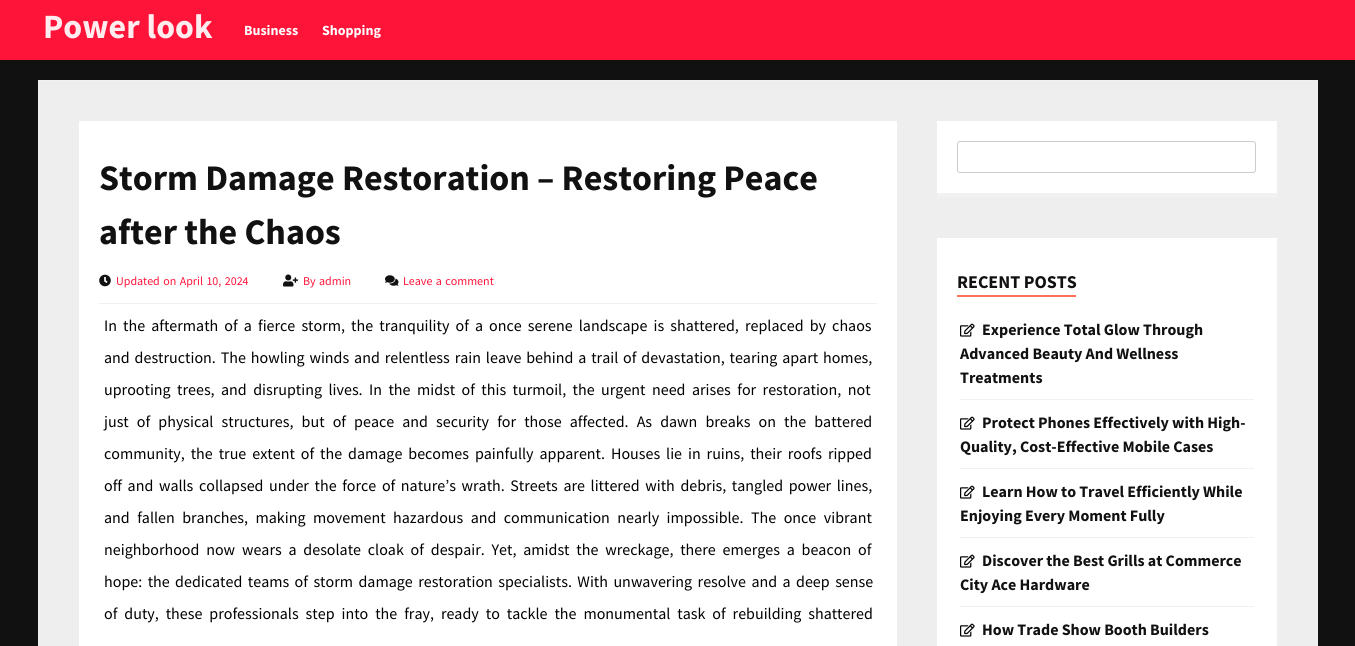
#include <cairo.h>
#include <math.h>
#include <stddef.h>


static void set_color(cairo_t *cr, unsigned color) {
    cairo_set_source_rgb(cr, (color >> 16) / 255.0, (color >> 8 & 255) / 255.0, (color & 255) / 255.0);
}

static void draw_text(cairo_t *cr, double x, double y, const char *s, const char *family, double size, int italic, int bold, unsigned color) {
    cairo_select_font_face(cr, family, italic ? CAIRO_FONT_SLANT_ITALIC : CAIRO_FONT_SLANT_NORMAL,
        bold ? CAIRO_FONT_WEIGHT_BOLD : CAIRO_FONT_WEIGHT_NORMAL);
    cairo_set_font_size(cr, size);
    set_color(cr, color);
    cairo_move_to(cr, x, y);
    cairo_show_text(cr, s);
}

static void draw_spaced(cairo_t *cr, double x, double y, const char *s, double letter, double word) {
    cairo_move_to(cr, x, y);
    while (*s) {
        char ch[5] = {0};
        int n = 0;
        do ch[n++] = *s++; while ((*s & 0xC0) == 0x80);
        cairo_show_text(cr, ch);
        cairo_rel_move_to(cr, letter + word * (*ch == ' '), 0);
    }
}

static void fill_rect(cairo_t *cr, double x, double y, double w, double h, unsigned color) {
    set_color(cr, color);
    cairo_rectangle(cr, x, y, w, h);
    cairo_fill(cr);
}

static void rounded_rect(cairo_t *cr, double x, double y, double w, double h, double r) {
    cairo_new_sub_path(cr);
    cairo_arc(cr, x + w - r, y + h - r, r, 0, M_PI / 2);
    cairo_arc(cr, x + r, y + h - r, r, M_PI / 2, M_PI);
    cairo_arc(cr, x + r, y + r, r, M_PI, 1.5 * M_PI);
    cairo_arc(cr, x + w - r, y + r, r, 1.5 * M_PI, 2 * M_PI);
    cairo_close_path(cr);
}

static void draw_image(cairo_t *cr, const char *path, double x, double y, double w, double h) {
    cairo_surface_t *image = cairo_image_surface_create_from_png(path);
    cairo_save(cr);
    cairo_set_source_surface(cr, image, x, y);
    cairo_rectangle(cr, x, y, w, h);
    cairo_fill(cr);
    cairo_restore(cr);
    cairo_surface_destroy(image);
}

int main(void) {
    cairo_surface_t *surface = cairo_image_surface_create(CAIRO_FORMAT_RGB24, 1355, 646);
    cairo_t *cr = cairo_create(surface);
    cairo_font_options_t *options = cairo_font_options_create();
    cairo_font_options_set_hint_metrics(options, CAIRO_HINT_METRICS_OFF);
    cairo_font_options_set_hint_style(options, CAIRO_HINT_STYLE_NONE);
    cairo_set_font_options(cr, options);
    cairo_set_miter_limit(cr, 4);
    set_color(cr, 0x111111);
    cairo_paint(cr);
    fill_rect(cr, 0, 0, 1355, 60, 0xFF1439);
    draw_text(cr, 43, 38, "Power look", "Source Sans Pro", 34, 0, 1, 0xFFECEF);
    draw_text(cr, 244, 35, "Business", "Source Sans Pro", 14, 0, 1, 0xFFFFFF);
    draw_text(cr, 322, 35, "Shopping", "Source Sans Pro", 14, 0, 1, 0xFFFFFF);
    set_color(cr, 0xEEEEEE);
    cairo_rectangle(cr, 38.5, 80.5, 1279, 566);
    cairo_fill_preserve(cr);
    set_color(cr, 0xF1F1F1);
    cairo_set_line_width(cr, 1);
    cairo_stroke(cr);
    fill_rect(cr, 79, 121, 818, 525, 0xFFFFFF);
    draw_text(cr, 99, 190, "Storm Damage Restoration – Restoring Peace", "Source Sans Pro", 36, 0, 1, 0x111111);
    draw_text(cr, 99, 244, "after the Chaos", "Source Sans Pro", 36, 0, 1, 0x111111);
    fill_rect(cr, 99, 303, 778, 1, 0xF0F0F0);
    draw_image(cr, "assets/img1.png", 99, 274, 12, 13);
    cairo_select_font_face(cr, "Source Sans Pro", CAIRO_FONT_SLANT_NORMAL, CAIRO_FONT_WEIGHT_NORMAL);
    cairo_set_font_size(cr, 12);
    set_color(cr, 0xFF1439);
    draw_spaced(cr, 116, 285, "Updated on April 10, 2024", 0, 1);
    draw_image(cr, "assets/img2.png", 283, 274, 15, 13);
    draw_text(cr, 303, 285, "By", "Source Sans Pro", 12, 0, 0, 0xFF1439);
    draw_text(cr, 319, 285, "admin", "Source Sans Pro", 12, 0, 0, 0xFF1439);
    draw_image(cr, "assets/img3.png", 385, 275, 14, 11);
    draw_spaced(cr, 403, 285, "Leave a comment", 0, 1);
    cairo_set_font_size(cr, 16);
    set_color(cr, 0x000000);
    draw_spaced(cr, 104, 331, "In the aftermath of a fierce storm, the tranquility of a once serene landscape is shattered, replaced by chaos", 0, 2.9);
    draw_spaced(cr, 104, 363, "and destruction. The howling winds and relentless rain leave behind a trail of devastation, tearing apart homes,", 0, 1.7);
    draw_spaced(cr, 104, 395, "uprooting trees, and disrupting lives. In the midst of this turmoil, the urgent need arises for restoration, not", 0, 3.25);
    draw_spaced(cr, 104, 427, "just of physical structures, but of peace and security for those affected. As dawn breaks on the battered", 0, 4.9);
    draw_spaced(cr, 104, 459, "community, the true extent of the damage becomes painfully apparent. Houses lie in ruins, their roofs ripped", 0, 2.75);
    draw_spaced(cr, 104, 491, "off and walls collapsed under the force of nature’s wrath. Streets are littered with debris, tangled power lines,", 0, 2.4);
    draw_spaced(cr, 104, 523, "and fallen branches, making movement hazardous and communication nearly impossible. The once vibrant", 0, 4.25);
    draw_spaced(cr, 104, 555, "neighborhood now wears a desolate cloak of despair. Yet, amidst the wreckage, there emerges a beacon of", 0, 3.6);
    draw_spaced(cr, 104, 587, "hope: the dedicated teams of storm damage restoration specialists. With unwavering resolve and a deep sense", 0, 2.25);
    draw_spaced(cr, 104, 619, "of duty, these professionals step into the fray, ready to tackle the monumental task of rebuilding shattered", 0, 3.75);
    fill_rect(cr, 937, 121, 340, 72, 0xFFFFFF);
    fill_rect(cr, 937, 193, 340, 5, 0xF1F1F1);
    rounded_rect(cr, 957.5, 141.5, 298, 31, 2.5);
    set_color(cr, 0xCCCCCC);
    cairo_stroke(cr);
    fill_rect(cr, 937, 238, 340, 408, 0xFFFFFF);
    fill_rect(cr, 957, 295, 119, 2, 0xFF715B);
    draw_text(cr, 957, 288, "RECENT POSTS", "Source Sans Pro", 18, 0, 1, 0x111111);
    fill_rect(cr, 960, 399, 294, 1, 0xF1F1F1);
    draw_image(cr, "assets/img4.png", 960, 323, 15, 14);
    draw_text(cr, 982, 335, "Experience Total Glow Through", "Source Sans Pro", 16, 0, 1, 0x111111);
    draw_text(cr, 960, 359, "Advanced Beauty And Wellness", "Source Sans Pro", 16, 0, 1, 0x111111);
    draw_text(cr, 960, 383, "Treatments", "Source Sans Pro", 16, 0, 1, 0x111111);
    fill_rect(cr, 960, 468, 294, 1, 0xF1F1F1);
    draw_image(cr, "assets/img4.png", 960, 416, 15, 14);
    draw_text(cr, 982, 428, "Protect Phones Effectively with High-", "Source Sans Pro", 16, 0, 1, 0x111111);
    draw_text(cr, 960, 452, "Quality, Cost-Effective Mobile Cases", "Source Sans Pro", 16, 0, 1, 0x111111);
    fill_rect(cr, 960, 537, 294, 1, 0xF1F1F1);
    draw_image(cr, "assets/img4.png", 960, 485, 15, 14);
    draw_text(cr, 982, 497, "Learn How to Travel Efficiently While", "Source Sans Pro", 16, 0, 1, 0x111111);
    draw_text(cr, 960, 521, "Enjoying Every Moment Fully", "Source Sans Pro", 16, 0, 1, 0x111111);
    fill_rect(cr, 960, 606, 294, 1, 0xF1F1F1);
    draw_image(cr, "assets/img4.png", 960, 554, 15, 14);
    draw_text(cr, 982, 566, "Discover the Best Grills at Commerce", "Source Sans Pro", 16, 0, 1, 0x111111);
    draw_text(cr, 960, 590, "City Ace Hardware", "Source Sans Pro", 16, 0, 1, 0x111111);
    draw_image(cr, "assets/img4.png", 960, 623, 15, 14);
    draw_text(cr, 982, 635, "How Trade Show Booth Builders", "Source Sans Pro", 16, 0, 1, 0x111111);
    cairo_surface_write_to_png(surface, "output.png");
    cairo_font_options_destroy(options);
    cairo_destroy(cr);
    cairo_surface_destroy(surface);
    return 0;
}
